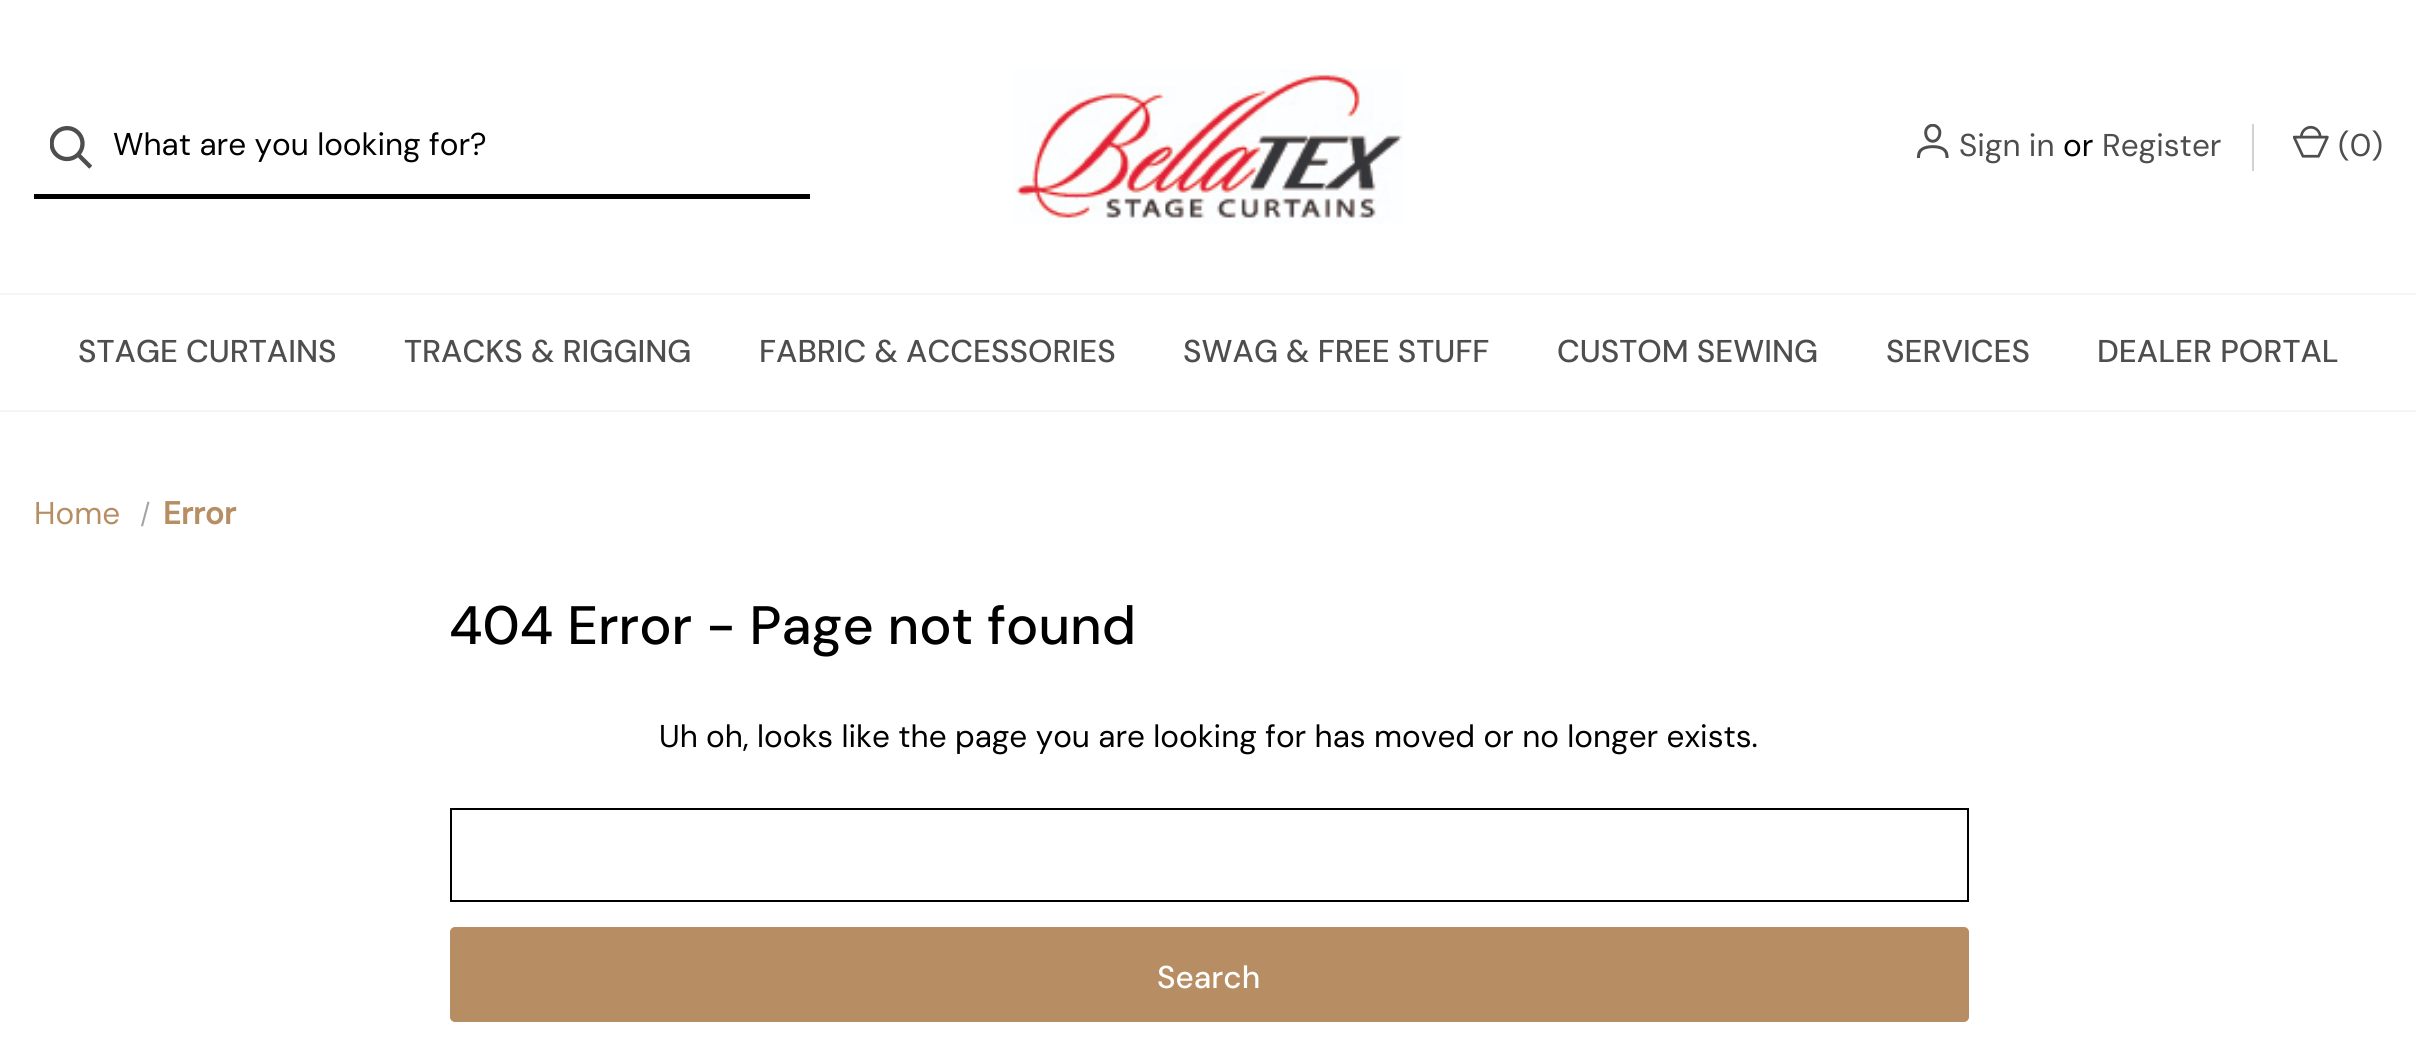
#include <cairo.h>
#include <math.h>
#include <stddef.h>


static void set_color(cairo_t *cr, unsigned color) {
    cairo_set_source_rgb(cr, (color >> 16) / 255.0, (color >> 8 & 255) / 255.0, (color & 255) / 255.0);
}

static void draw_text(cairo_t *cr, double x, double y, const char *s, const char *family, double size, int italic, int bold, unsigned color) {
    cairo_select_font_face(cr, family, italic ? CAIRO_FONT_SLANT_ITALIC : CAIRO_FONT_SLANT_NORMAL,
        bold ? CAIRO_FONT_WEIGHT_BOLD : CAIRO_FONT_WEIGHT_NORMAL);
    cairo_set_font_size(cr, size);
    set_color(cr, color);
    cairo_move_to(cr, x, y);
    cairo_show_text(cr, s);
}

static void fill_rect(cairo_t *cr, double x, double y, double w, double h, unsigned color) {
    set_color(cr, color);
    cairo_rectangle(cr, x, y, w, h);
    cairo_fill(cr);
}

static void rounded_rect(cairo_t *cr, double x, double y, double w, double h, double r) {
    cairo_new_sub_path(cr);
    cairo_arc(cr, x + w - r, y + h - r, r, 0, M_PI / 2);
    cairo_arc(cr, x + r, y + h - r, r, M_PI / 2, M_PI);
    cairo_arc(cr, x + r, y + r, r, M_PI, 1.5 * M_PI);
    cairo_arc(cr, x + w - r, y + r, r, 1.5 * M_PI, 2 * M_PI);
    cairo_close_path(cr);
}

static void draw_image(cairo_t *cr, const char *path, double x, double y, double w, double h) {
    cairo_surface_t *image = cairo_image_surface_create_from_png(path);
    cairo_save(cr);
    cairo_set_source_surface(cr, image, x, y);
    cairo_rectangle(cr, x, y, w, h);
    cairo_fill(cr);
    cairo_restore(cr);
    cairo_surface_destroy(image);
}

int main(void) {
    cairo_surface_t *surface = cairo_image_surface_create(CAIRO_FORMAT_RGB24, 2416, 1050);
    cairo_t *cr = cairo_create(surface);
    cairo_font_options_t *options = cairo_font_options_create();
    cairo_font_options_set_hint_metrics(options, CAIRO_HINT_METRICS_OFF);
    cairo_font_options_set_hint_style(options, CAIRO_HINT_STYLE_NONE);
    cairo_set_font_options(cr, options);
    cairo_set_miter_limit(cr, 4);
    set_color(cr, 0xFFFFFF);
    cairo_paint(cr);
    draw_image(cr, "assets/img1.png", 50, 126, 42, 43);
    fill_rect(cr, 34, 194, 776, 5, 0x000000);
    draw_text(cr, 113, 155, "What are you looking for?", "DM Sans", 31.5, 0, 0, 0x000000);
    draw_image(cr, "assets/img2.png", 1013, 69, 390, 155);
    draw_image(cr, "assets/img3.png", 1916, 124, 33, 34);
    draw_text(cr, 1959, 156, "Sign in", "DM Sans", 31.5, 0, 0, 0x4E4E4E);
    draw_text(cr, 2063, 156, "or", "DM Sans", 31.5, 0, 0, 0x000000);
    draw_text(cr, 2102, 156, "Register", "DM Sans", 31.5, 0, 0, 0x4E4E4E);
    fill_rect(cr, 2252, 124, 2, 47, 0xD2D2D2);
    draw_image(cr, "assets/img4.png", 2293, 125, 36, 33);
    draw_text(cr, 2338, 156, "(0)", "DM Sans", 31.5, 0, 0, 0x4E4E4E);
    fill_rect(cr, 0, 293, 2416, 2, 0xF5F5F5);
    fill_rect(cr, 0, 410, 2416, 2, 0xF5F5F5);
    draw_text(cr, 78, 362, "STAGE CURTAINS", "DM Sans Medium", 31.5, 0, 0, 0x4E4E4E);
    draw_text(cr, 404, 362, "TRACKS & RIGGING", "DM Sans Medium", 31.5, 0, 0, 0x4E4E4E);
    draw_text(cr, 759, 362, "FABRIC & ACCESSORIES", "DM Sans Medium", 31.5, 0, 0, 0x4E4E4E);
    draw_text(cr, 1183, 362, "SWAG & FREE STUFF", "DM Sans Medium", 31.5, 0, 0, 0x4E4E4E);
    draw_text(cr, 1557, 362, "CUSTOM SEWING", "DM Sans Medium", 31.5, 0, 0, 0x4E4E4E);
    draw_text(cr, 1886, 362, "SERVICES", "DM Sans Medium", 31.5, 0, 0, 0x4E4E4E);
    draw_text(cr, 2097, 362, "DEALER PORTAL", "DM Sans Medium", 31.5, 0, 0, 0x4E4E4E);
    draw_text(cr, 34, 524, "Home", "DM Sans", 31.5, 0, 0, 0xB78E64);
    set_color(cr, 0xA3A3A3);
    cairo_new_path(cr);
    cairo_move_to(cr, 147.5, 501.5);
    cairo_line_to(cr, 149.5, 502);
    cairo_line_to(cr, 143, 526.5);
    cairo_line_to(cr, 141, 526);
    cairo_close_path(cr);
    cairo_fill(cr);
    draw_text(cr, 163, 524, "Error", "DM Sans", 31.5, 0, 1, 0xB78E64);
    draw_text(cr, 449, 644, "404 Error - Page not found", "DM Sans Medium", 54, 0, 0, 0x000000);
    draw_text(cr, 659, 747, "Uh oh, looks like the page you are looking for has moved or no longer exists.", "DM Sans", 31.5, 0, 0, 0x000000);
    cairo_rectangle(cr, 451, 809, 1517, 92);
    cairo_stroke(cr);
    set_color(cr, 0xB78E64);
    rounded_rect(cr, 451, 928, 1517, 93, 4);
    cairo_fill_preserve(cr);
    cairo_stroke(cr);
    draw_text(cr, 1157, 988, "Search", "DM Sans Medium", 31.5, 0, 0, 0xFFFFFF);
    cairo_surface_write_to_png(surface, "output.png");
    cairo_font_options_destroy(options);
    cairo_destroy(cr);
    cairo_surface_destroy(surface);
    return 0;
}
